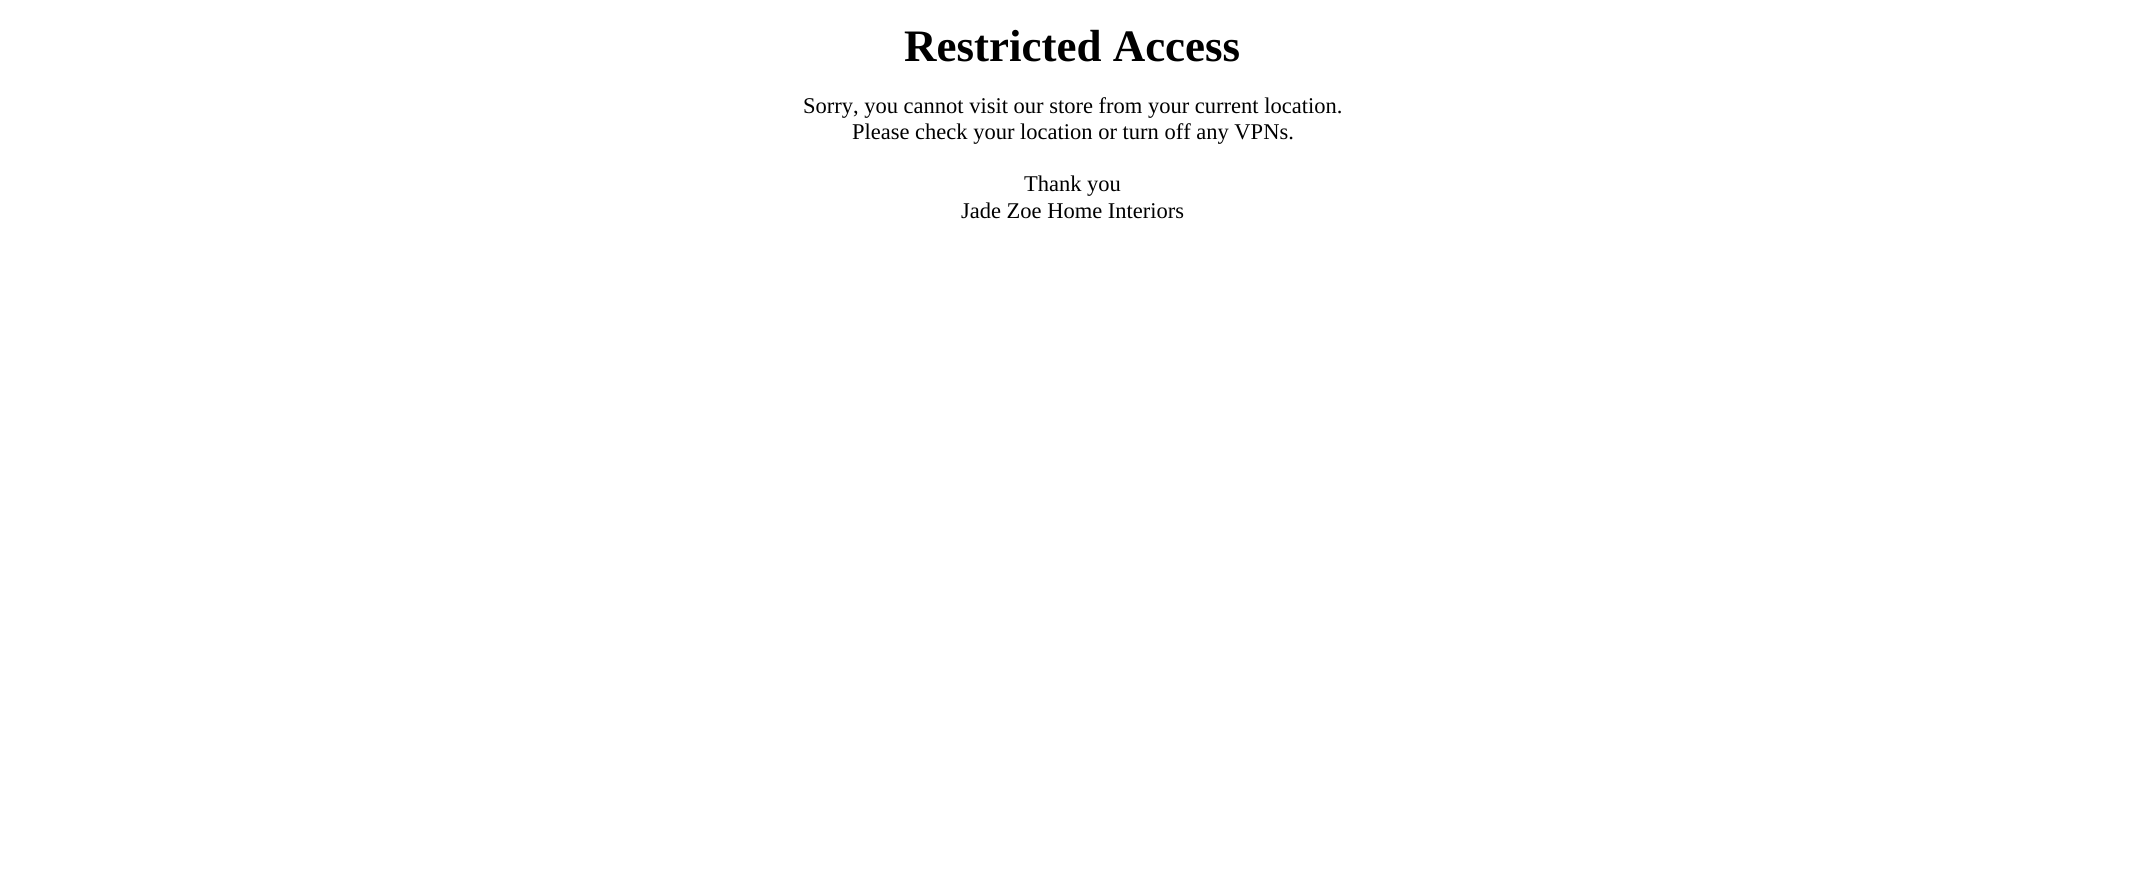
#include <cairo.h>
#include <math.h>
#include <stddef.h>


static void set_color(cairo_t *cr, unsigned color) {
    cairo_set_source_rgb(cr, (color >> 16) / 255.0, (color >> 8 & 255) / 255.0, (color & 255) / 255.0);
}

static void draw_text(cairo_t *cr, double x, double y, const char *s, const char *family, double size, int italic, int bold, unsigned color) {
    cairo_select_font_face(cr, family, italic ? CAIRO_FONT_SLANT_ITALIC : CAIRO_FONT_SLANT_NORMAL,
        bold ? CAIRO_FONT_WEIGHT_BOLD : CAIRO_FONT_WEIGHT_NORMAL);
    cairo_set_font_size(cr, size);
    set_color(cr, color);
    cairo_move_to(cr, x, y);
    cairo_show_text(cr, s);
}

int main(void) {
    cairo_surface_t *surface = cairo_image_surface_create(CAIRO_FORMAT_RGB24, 2145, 888);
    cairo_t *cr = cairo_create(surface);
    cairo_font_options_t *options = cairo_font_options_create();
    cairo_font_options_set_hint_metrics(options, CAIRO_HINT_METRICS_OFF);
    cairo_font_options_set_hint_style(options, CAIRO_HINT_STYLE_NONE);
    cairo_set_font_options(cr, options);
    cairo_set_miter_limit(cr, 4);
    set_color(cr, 0xFFFFFF);
    cairo_paint(cr);
    draw_text(cr, 904, 61, "Restricted Access", "Liberation Serif", 45, 0, 1, 0x000000);
    draw_text(cr, 803, 113, "Sorry, you cannot visit our store from your current location.", "Liberation Serif", 22.5, 0, 0, 0x000000);
    draw_text(cr, 852, 139, "Please check your location or turn off any VPNs.", "Liberation Serif", 22.5, 0, 0, 0x000000);
    draw_text(cr, 1024, 191, "Thank you", "Liberation Serif", 22.5, 0, 0, 0x000000);
    draw_text(cr, 961, 218, "Jade Zoe Home Interiors", "Liberation Serif", 22.5, 0, 0, 0x000000);
    cairo_surface_write_to_png(surface, "output.png");
    cairo_font_options_destroy(options);
    cairo_destroy(cr);
    cairo_surface_destroy(surface);
    return 0;
}
